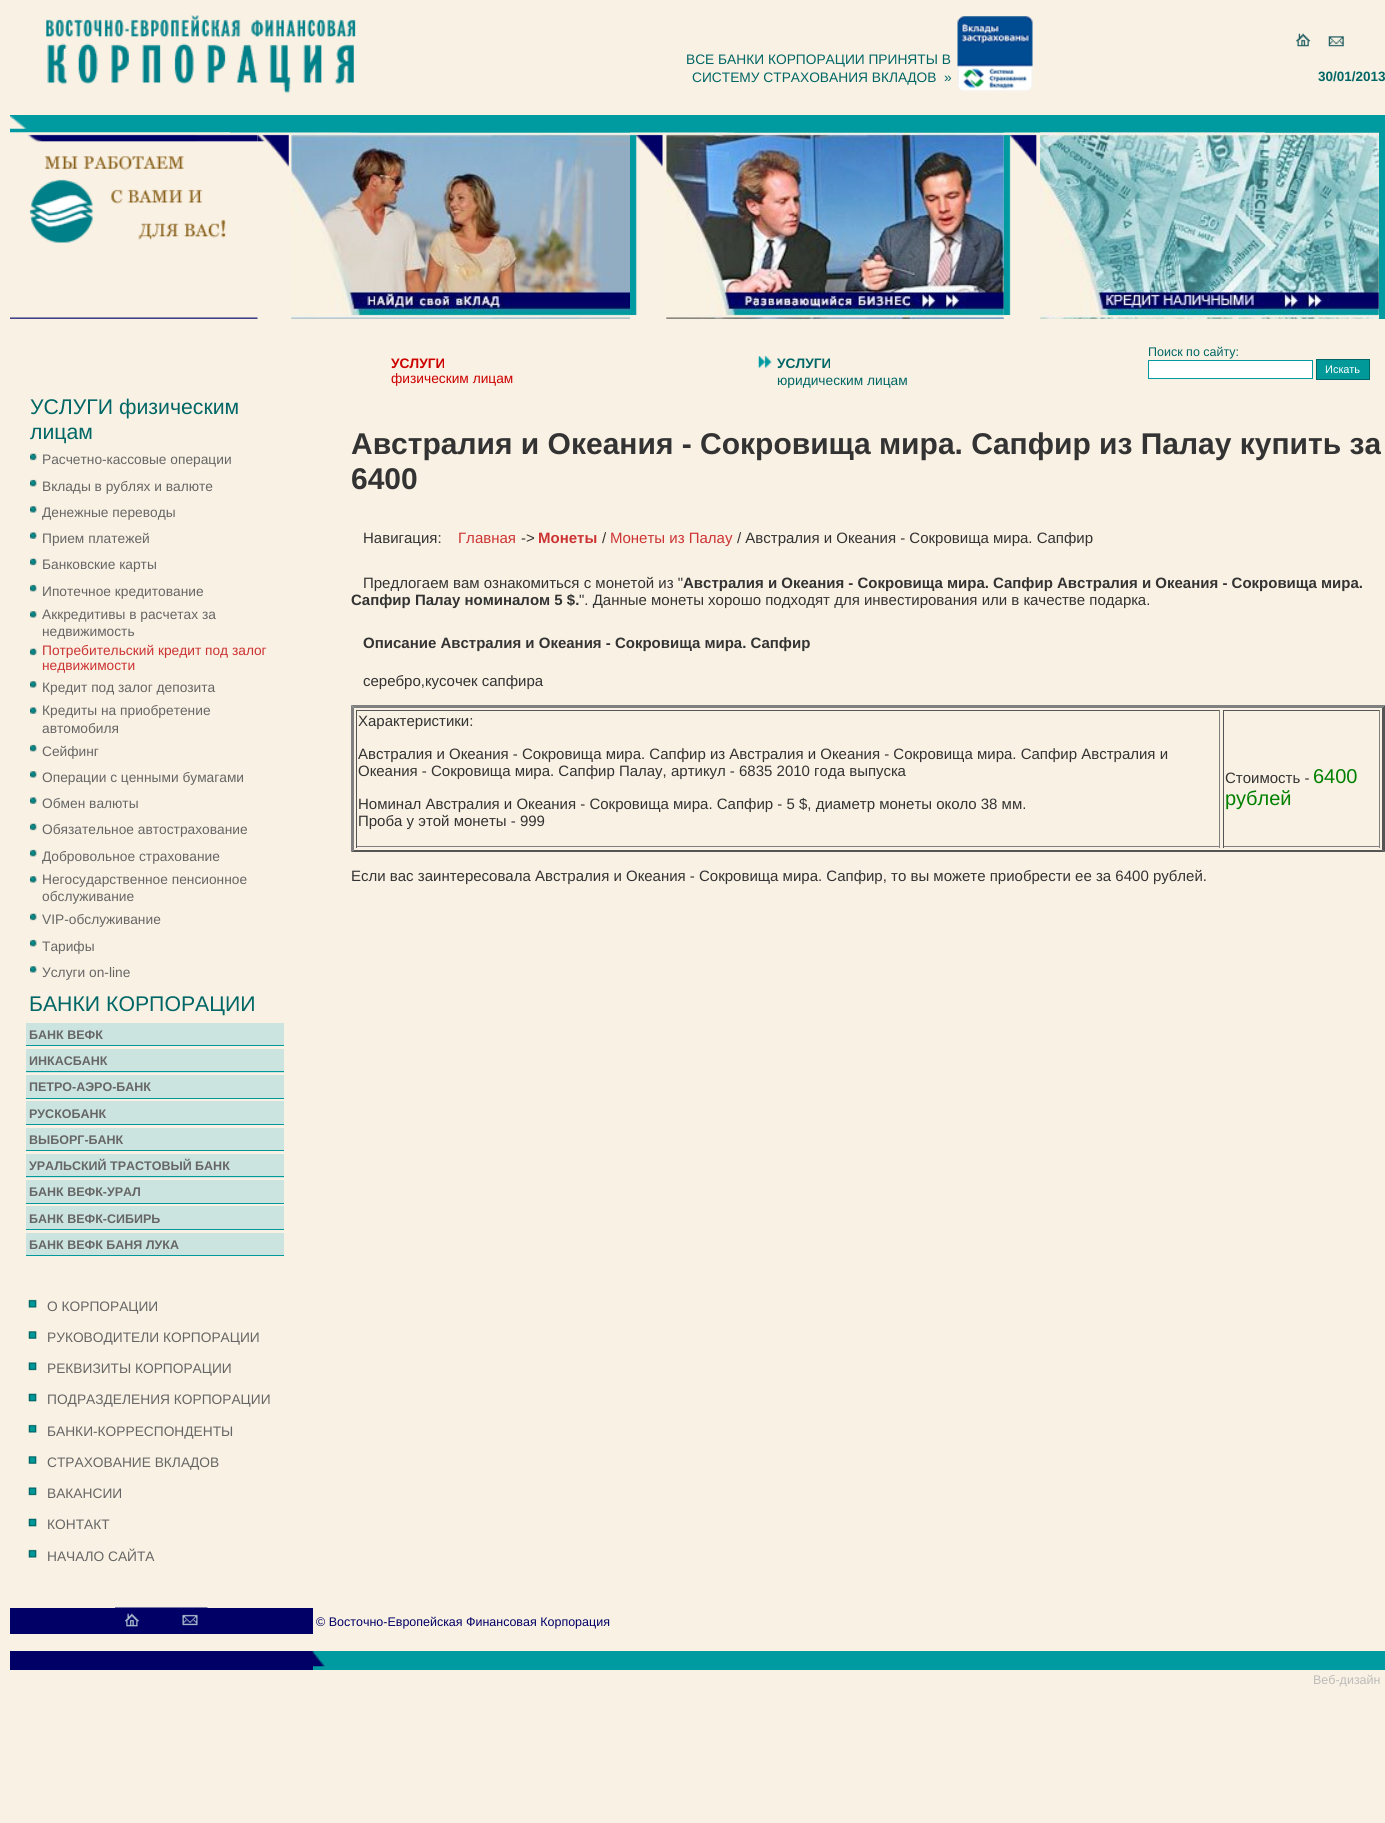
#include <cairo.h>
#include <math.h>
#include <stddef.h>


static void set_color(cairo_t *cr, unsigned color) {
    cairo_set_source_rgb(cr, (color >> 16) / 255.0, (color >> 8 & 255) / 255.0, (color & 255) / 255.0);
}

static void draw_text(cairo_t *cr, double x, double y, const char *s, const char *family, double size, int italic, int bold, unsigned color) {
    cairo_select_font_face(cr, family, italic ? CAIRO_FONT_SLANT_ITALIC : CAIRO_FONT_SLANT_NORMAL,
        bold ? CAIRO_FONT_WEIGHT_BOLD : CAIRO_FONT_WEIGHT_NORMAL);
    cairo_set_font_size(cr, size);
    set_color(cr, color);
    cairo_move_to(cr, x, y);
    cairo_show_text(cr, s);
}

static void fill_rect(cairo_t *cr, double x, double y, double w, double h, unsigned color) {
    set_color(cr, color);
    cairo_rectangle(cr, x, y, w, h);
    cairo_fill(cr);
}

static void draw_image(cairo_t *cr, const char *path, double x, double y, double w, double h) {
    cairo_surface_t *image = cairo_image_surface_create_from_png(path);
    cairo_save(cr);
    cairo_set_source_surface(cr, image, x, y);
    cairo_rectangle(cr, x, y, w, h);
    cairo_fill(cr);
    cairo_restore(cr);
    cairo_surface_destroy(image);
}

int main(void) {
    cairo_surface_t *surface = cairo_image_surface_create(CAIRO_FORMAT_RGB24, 1385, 1823);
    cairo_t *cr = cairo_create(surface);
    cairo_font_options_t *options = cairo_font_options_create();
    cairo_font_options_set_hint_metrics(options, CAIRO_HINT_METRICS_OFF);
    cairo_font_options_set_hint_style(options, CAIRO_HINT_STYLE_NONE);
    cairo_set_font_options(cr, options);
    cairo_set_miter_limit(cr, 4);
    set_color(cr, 0xF9F1E3);
    cairo_paint(cr);
    draw_image(cr, "assets/img1.png", 46, 15, 310, 78);
    draw_text(cr, 686, 64, "ВСЕ БАНКИ КОРПОРАЦИИ ПРИНЯТЫ В", "Liberation Sans", 13.75, 0, 0, 0x006666);
    draw_image(cr, "assets/img2.png", 957, 16, 76, 76);
    draw_text(cr, 692, 82, "СИСТЕМУ СТРАХОВАНИЯ ВКЛАДОВ  »", "Liberation Sans", 13.75, 0, 0, 0x006666);
    draw_image(cr, "assets/img3.png", 1296, 33, 48, 14);
    draw_text(cr, 1318, 81, "30/01/2013", "Liberation Sans", 13.5, 0, 1, 0x006666);
    fill_rect(cr, 10, 115, 1375, 18, 0x009AA1);
    draw_image(cr, "assets/img4.png", 10, 116, 17, 13);
    draw_image(cr, "assets/img5.png", 10, 132, 248, 187);
    draw_image(cr, "assets/img6.png", 10, 132, 220, 111);
    draw_image(cr, "assets/img8.png", 291, 132, 339, 187);
    draw_image(cr, "assets/img7.png", 257, 132, 35, 42);
    draw_image(cr, "assets/img10.png", 666, 132, 338, 187);
    draw_image(cr, "assets/img9.png", 630, 132, 37, 183);
    draw_image(cr, "assets/img11.png", 1003, 132, 37, 183);
    draw_image(cr, "assets/img12.png", 1040, 132, 339, 187);
    draw_image(cr, "assets/img13.png", 1040, 132, 225, 183);
    fill_rect(cr, 1379, 133, 6, 186, 0x009AA1);
    draw_text(cr, 391, 368, "УСЛУГИ", "Liberation Sans", 13.75, 0, 1, 0xCC0000);
    draw_text(cr, 391, 383, "физическим лицам", "Liberation Sans", 13.75, 0, 0, 0xCC0000);
    draw_image(cr, "assets/img14.png", 758, 356, 14, 12);
    draw_text(cr, 777, 368, "УСЛУГИ", "Liberation Sans", 13.75, 0, 1, 0x006666);
    draw_text(cr, 777, 385, "юридическим лицам", "Liberation Sans", 13.75, 0, 0, 0x006666);
    draw_text(cr, 1148, 356, "Поиск по сайту:", "Liberation Sans", 12.5, 0, 0, 0x006666);
    set_color(cr, 0xFFFFFF);
    cairo_rectangle(cr, 1148.5, 360.5, 164, 18);
    cairo_fill_preserve(cr);
    set_color(cr, 0x009AA1);
    cairo_set_line_width(cr, 1);
    cairo_stroke(cr);
    set_color(cr, 0x009999);
    cairo_rectangle(cr, 1316.5, 359.5, 53, 20);
    cairo_fill_preserve(cr);
    set_color(cr, 0x006666);
    cairo_stroke(cr);
    draw_text(cr, 1325, 373, "Искать", "Liberation Sans", 11, 0, 0, 0xFFFFFF);
    draw_text(cr, 30, 414, "УСЛУГИ физическим", "Liberation Sans", 21.25, 0, 0, 0x006666);
    draw_text(cr, 30, 439, "лицам", "Liberation Sans", 21.25, 0, 0, 0x006666);
    draw_image(cr, "assets/img15.png", 30, 453, 7, 8);
    draw_text(cr, 42, 464, "Расчетно-кассовые операции", "Liberation Sans", 13.75, 0, 0, 0x666666);
    draw_image(cr, "assets/img16.png", 30, 479, 7, 8);
    draw_text(cr, 42, 491, "Вклады в рублях и валюте", "Liberation Sans", 13.75, 0, 0, 0x666666);
    draw_image(cr, "assets/img17.png", 30, 506, 7, 7);
    draw_text(cr, 42, 517, "Денежные переводы", "Liberation Sans", 13.75, 0, 0, 0x666666);
    draw_image(cr, "assets/img18.png", 30, 532, 7, 7);
    draw_text(cr, 42, 543, "Прием платежей", "Liberation Sans", 13.75, 0, 0, 0x666666);
    draw_image(cr, "assets/img15.png", 30, 558, 7, 8);
    draw_text(cr, 42, 569, "Банковские карты", "Liberation Sans", 13.75, 0, 0, 0x666666);
    draw_image(cr, "assets/img16.png", 30, 584, 7, 8);
    draw_text(cr, 42, 596, "Ипотечное кредитование", "Liberation Sans", 13.75, 0, 0, 0x666666);
    draw_image(cr, "assets/img17.png", 30, 611, 7, 7);
    draw_text(cr, 42, 619, "Аккредитивы в расчетах за", "Liberation Sans", 13.75, 0, 0, 0x666666);
    draw_text(cr, 42, 636, "недвижимость", "Liberation Sans", 13.75, 0, 0, 0x666666);
    draw_image(cr, "assets/img15.png", 30, 648, 7, 8);
    draw_text(cr, 42, 655, "Потребительский кредит под залог", "Liberation Sans", 13.75, 0, 0, 0xCC3333);
    draw_text(cr, 42, 670, "недвижимости", "Liberation Sans", 13.75, 0, 0, 0xCC3333);
    draw_image(cr, "assets/img17.png", 30, 681, 7, 7);
    draw_text(cr, 42, 692, "Кредит под залог депозита", "Liberation Sans", 13.75, 0, 0, 0x666666);
    draw_image(cr, "assets/img18.png", 30, 707, 7, 7);
    draw_text(cr, 42, 715, "Кредиты на приобретение", "Liberation Sans", 13.75, 0, 0, 0x666666);
    draw_text(cr, 42, 733, "автомобиля", "Liberation Sans", 13.75, 0, 0, 0x666666);
    draw_image(cr, "assets/img16.png", 30, 744, 7, 8);
    draw_text(cr, 42, 756, "Сейфинг", "Liberation Sans", 13.75, 0, 0, 0x666666);
    draw_image(cr, "assets/img17.png", 30, 771, 7, 7);
    draw_text(cr, 42, 782, "Операции с ценными бумагами", "Liberation Sans", 13.75, 0, 0, 0x666666);
    draw_image(cr, "assets/img18.png", 30, 797, 7, 7);
    draw_text(cr, 42, 808, "Обмен валюты", "Liberation Sans", 13.75, 0, 0, 0x666666);
    draw_image(cr, "assets/img15.png", 30, 823, 7, 8);
    draw_text(cr, 42, 834, "Обязательное автострахование", "Liberation Sans", 13.75, 0, 0, 0x666666);
    draw_image(cr, "assets/img16.png", 30, 849, 7, 8);
    draw_text(cr, 42, 861, "Добровольное страхование", "Liberation Sans", 13.75, 0, 0, 0x666666);
    draw_image(cr, "assets/img17.png", 30, 876, 7, 7);
    draw_text(cr, 42, 884, "Негосударственное пенсионное", "Liberation Sans", 13.75, 0, 0, 0x666666);
    draw_text(cr, 42, 901, "обслуживание", "Liberation Sans", 13.75, 0, 0, 0x666666);
    draw_image(cr, "assets/img15.png", 30, 913, 7, 8);
    draw_text(cr, 42, 924, "VIP-обслуживание", "Liberation Sans", 13.75, 0, 0, 0x666666);
    draw_image(cr, "assets/img16.png", 30, 939, 7, 8);
    draw_text(cr, 42, 951, "Тарифы", "Liberation Sans", 13.75, 0, 0, 0x666666);
    draw_image(cr, "assets/img17.png", 30, 966, 7, 7);
    draw_text(cr, 42, 977, "Услуги on-line", "Liberation Sans", 13.75, 0, 0, 0x666666);
    draw_text(cr, 29, 1011, "БАНКИ КОРПОРАЦИИ", "Liberation Sans", 21.25, 0, 0, 0x006666);
    fill_rect(cr, 26, 1023, 258, 22, 0xCCE4E0);
    fill_rect(cr, 26, 1045, 258, 1, 0x009999);
    draw_text(cr, 29, 1039, "БАНК ВЕФК", "Liberation Sans", 12.5, 0, 1, 0x666666);
    fill_rect(cr, 26, 1049, 258, 24, 0xCCE4E0);
    fill_rect(cr, 26, 1071, 258, 1, 0x009999);
    draw_text(cr, 29, 1065, "ИНКАСБАНК", "Liberation Sans", 12.5, 0, 1, 0x666666);
    fill_rect(cr, 26, 1075, 258, 23, 0xCCE4E0);
    fill_rect(cr, 26, 1098, 258, 1, 0x009999);
    draw_text(cr, 29, 1091, "ПЕТРО-АЭРО-БАНК", "Liberation Sans", 12.5, 0, 1, 0x666666);
    fill_rect(cr, 26, 1101, 258, 23, 0xCCE4E0);
    fill_rect(cr, 26, 1124, 258, 1, 0x009999);
    draw_text(cr, 29, 1118, "РУСКОБАНК", "Liberation Sans", 12.5, 0, 1, 0x666666);
    fill_rect(cr, 26, 1128, 258, 22, 0xCCE4E0);
    fill_rect(cr, 26, 1150, 258, 1, 0x009999);
    draw_text(cr, 29, 1144, "ВЫБОРГ-БАНК", "Liberation Sans", 12.5, 0, 1, 0x666666);
    fill_rect(cr, 26, 1154, 258, 24, 0xCCE4E0);
    fill_rect(cr, 26, 1176, 258, 1, 0x009999);
    draw_text(cr, 29, 1170, "УРАЛЬСКИЙ ТРАСТОВЫЙ БАНК", "Liberation Sans", 12.5, 0, 1, 0x666666);
    fill_rect(cr, 26, 1180, 258, 23, 0xCCE4E0);
    fill_rect(cr, 26, 1203, 258, 1, 0x009999);
    draw_text(cr, 29, 1196, "БАНК ВЕФК-УРАЛ", "Liberation Sans", 12.5, 0, 1, 0x666666);
    fill_rect(cr, 26, 1206, 258, 23, 0xCCE4E0);
    fill_rect(cr, 26, 1229, 258, 1, 0x009999);
    draw_text(cr, 29, 1223, "БАНК ВЕФК-СИБИРЬ", "Liberation Sans", 12.5, 0, 1, 0x666666);
    fill_rect(cr, 26, 1233, 258, 22, 0xCCE4E0);
    fill_rect(cr, 26, 1255, 258, 1, 0x009999);
    draw_text(cr, 29, 1249, "БАНК ВЕФК БАНЯ ЛУКА", "Liberation Sans", 12.5, 0, 1, 0x666666);
    draw_image(cr, "assets/img19.png", 28, 1299, 9, 9);
    draw_text(cr, 47, 1311, "О КОРПОРАЦИИ", "Liberation Sans", 13.75, 0, 0, 0x666666);
    draw_image(cr, "assets/img20.png", 28, 1331, 9, 14);
    draw_text(cr, 47, 1342, "РУКОВОДИТЕЛИ КОРПОРАЦИИ", "Liberation Sans", 13.75, 0, 0, 0x666666);
    draw_image(cr, "assets/img21.png", 28, 1362, 9, 9);
    draw_text(cr, 47, 1373, "РЕКВИЗИТЫ КОРПОРАЦИИ", "Liberation Sans", 13.75, 0, 0, 0x666666);
    draw_image(cr, "assets/img22.png", 28, 1393, 9, 9);
    draw_text(cr, 47, 1404, "ПОДРАЗДЕЛЕНИЯ КОРПОРАЦИИ", "Liberation Sans", 13.75, 0, 0, 0x666666);
    draw_image(cr, "assets/img19.png", 28, 1424, 9, 9);
    draw_text(cr, 47, 1436, "БАНКИ-КОРРЕСПОНДЕНТЫ", "Liberation Sans", 13.75, 0, 0, 0x666666);
    draw_image(cr, "assets/img20.png", 28, 1456, 9, 14);
    draw_text(cr, 47, 1467, "СТРАХОВАНИЕ ВКЛАДОВ", "Liberation Sans", 13.75, 0, 0, 0x666666);
    draw_image(cr, "assets/img21.png", 28, 1487, 9, 9);
    draw_text(cr, 47, 1498, "ВАКАНСИИ", "Liberation Sans", 13.75, 0, 0, 0x666666);
    draw_image(cr, "assets/img22.png", 28, 1518, 9, 9);
    draw_text(cr, 47, 1529, "КОНТАКТ", "Liberation Sans", 13.75, 0, 0, 0x666666);
    draw_image(cr, "assets/img19.png", 28, 1549, 9, 9);
    draw_text(cr, 47, 1561, "НАЧАЛО САЙТА", "Liberation Sans", 13.75, 0, 0, 0x666666);
    draw_text(cr, 351, 454, "Австралия и Океания - Сокровища мира. Сапфир из Палау купить за", "Liberation Sans", 30, 0, 1, 0x333333);
    draw_text(cr, 351, 489, "6400", "Liberation Sans", 30, 0, 1, 0x333333);
    draw_text(cr, 363, 543, "Навигация:", "Liberation Sans", 15, 0, 0, 0x333333);
    draw_text(cr, 458, 543, "Главная", "Liberation Sans", 15, 0, 0, 0xCC3333);
    draw_text(cr, 521, 543, "->", "Liberation Sans", 15, 0, 0, 0x333333);
    draw_text(cr, 538, 543, "Монеты", "Liberation Sans", 15, 0, 1, 0xCC3333);
    draw_text(cr, 602, 543, "/", "Liberation Sans", 15, 0, 0, 0x333333);
    draw_text(cr, 610, 543, "Монеты из Палау", "Liberation Sans", 15, 0, 0, 0xCC3333);
    draw_text(cr, 737, 543, "/ Австралия и Океания - Сокровища мира. Сапфир", "Liberation Sans", 15, 0, 0, 0x333333);
    draw_text(cr, 363, 588, "Предлогаем вам ознакомиться с монетой из \"", "Liberation Sans", 15, 0, 0, 0x333333);
    draw_text(cr, 683, 588, "Австралия и Океания - Сокровища мира. Сапфир Австралия и Океания - Сокровища мира.", "Liberation Sans", 15, 0, 1, 0x333333);
    draw_text(cr, 351, 605, "Сапфир Палау номиналом 5 $.", "Liberation Sans", 15, 0, 1, 0x333333);
    draw_text(cr, 579, 605, "\". Данные монеты хорошо подходят для инвестирования или в качестве подарка.", "Liberation Sans", 15, 0, 0, 0x333333);
    draw_text(cr, 363, 648, "Описание Австралия и Океания - Сокровища мира. Сапфир", "Liberation Sans", 15, 0, 1, 0x333333);
    draw_text(cr, 363, 686, "серебро,кусочек сапфира", "Liberation Sans", 15, 0, 0, 0x333333);
    set_color(cr, 0x808080);
    cairo_new_path(cr);
    cairo_move_to(cr, 351, 705);
    cairo_line_to(cr, 1385, 705);
    cairo_line_to(cr, 1382, 708);
    cairo_line_to(cr, 354, 708);
    cairo_close_path(cr);
    cairo_fill(cr);
    set_color(cr, 0x555555);
    cairo_new_path(cr);
    cairo_move_to(cr, 1385, 705);
    cairo_line_to(cr, 1385, 852);
    cairo_line_to(cr, 1382, 850);
    cairo_line_to(cr, 1382, 708);
    cairo_close_path(cr);
    cairo_fill(cr);
    cairo_new_path(cr);
    cairo_move_to(cr, 1385, 852);
    cairo_line_to(cr, 351, 852);
    cairo_line_to(cr, 354, 850);
    cairo_line_to(cr, 1382, 850);
    cairo_close_path(cr);
    cairo_fill(cr);
    set_color(cr, 0x808080);
    cairo_new_path(cr);
    cairo_move_to(cr, 351, 852);
    cairo_line_to(cr, 351, 705);
    cairo_line_to(cr, 354, 708);
    cairo_line_to(cr, 354, 850);
    cairo_close_path(cr);
    cairo_fill(cr);
    fill_rect(cr, 356, 710, 864, 1, 0x555555);
    fill_rect(cr, 1219, 710, 1, 138, 0x808080);
    fill_rect(cr, 356, 846, 864, 1, 0x808080);
    fill_rect(cr, 356, 710, 1, 138, 0x555555);
    draw_text(cr, 358, 726, "Характеристики:", "Liberation Sans", 15, 0, 0, 0x333333);
    draw_text(cr, 358, 759, "Австралия и Океания - Сокровища мира. Сапфир из Австралия и Океания - Сокровища мира. Сапфир Австралия и", "Liberation Sans", 15, 0, 0, 0x333333);
    draw_text(cr, 358, 776, "Океания - Сокровища мира. Сапфир Палау, артикул - 6835 2010 года выпуска", "Liberation Sans", 15, 0, 0, 0x333333);
    draw_text(cr, 358, 809, "Номинал Австралия и Океания - Сокровища мира. Сапфир - 5 $, диаметр монеты около 38 мм.", "Liberation Sans", 15, 0, 0, 0x333333);
    draw_text(cr, 358, 826, "Проба у этой монеты - 999", "Liberation Sans", 15, 0, 0, 0x333333);
    fill_rect(cr, 1223, 710, 157, 1, 0x555555);
    fill_rect(cr, 1379, 710, 1, 138, 0x808080);
    fill_rect(cr, 1223, 846, 157, 1, 0x808080);
    fill_rect(cr, 1223, 710, 1, 138, 0x555555);
    draw_text(cr, 1225, 783, "Стоимость -", "Liberation Sans", 15, 0, 0, 0x333333);
    draw_text(cr, 1313, 783, "6400", "Liberation Sans", 20, 0, 0, 0x008000);
    draw_text(cr, 1225, 805, "рублей", "Liberation Sans", 20, 0, 0, 0x008000);
    draw_text(cr, 351, 881, "Если вас заинтересовала Австралия и Океания - Сокровища мира. Сапфир, то вы можете приобрести ее за 6400 рублей.", "Liberation Sans", 15, 0, 0, 0x333333);
    fill_rect(cr, 10, 1608, 303, 26, 0x000066);
    draw_image(cr, "assets/img23.png", 115, 1607, 93, 20);
    draw_text(cr, 316, 1626, "© Восточно-Европейская Финансовая Корпорация", "Liberation Sans", 12.5, 0, 0, 0x000066);
    fill_rect(cr, 10, 1651, 303, 19, 0x000066);
    fill_rect(cr, 313, 1651, 1072, 19, 0x009AA1);
    draw_image(cr, "assets/img24.png", 312, 1651, 13, 16);
    draw_text(cr, 1313, 1684, "Веб-дизайн", "Liberation Sans", 12.5, 0, 0, 0xBBBBBB);
    cairo_surface_write_to_png(surface, "output.png");
    cairo_font_options_destroy(options);
    cairo_destroy(cr);
    cairo_surface_destroy(surface);
    return 0;
}
